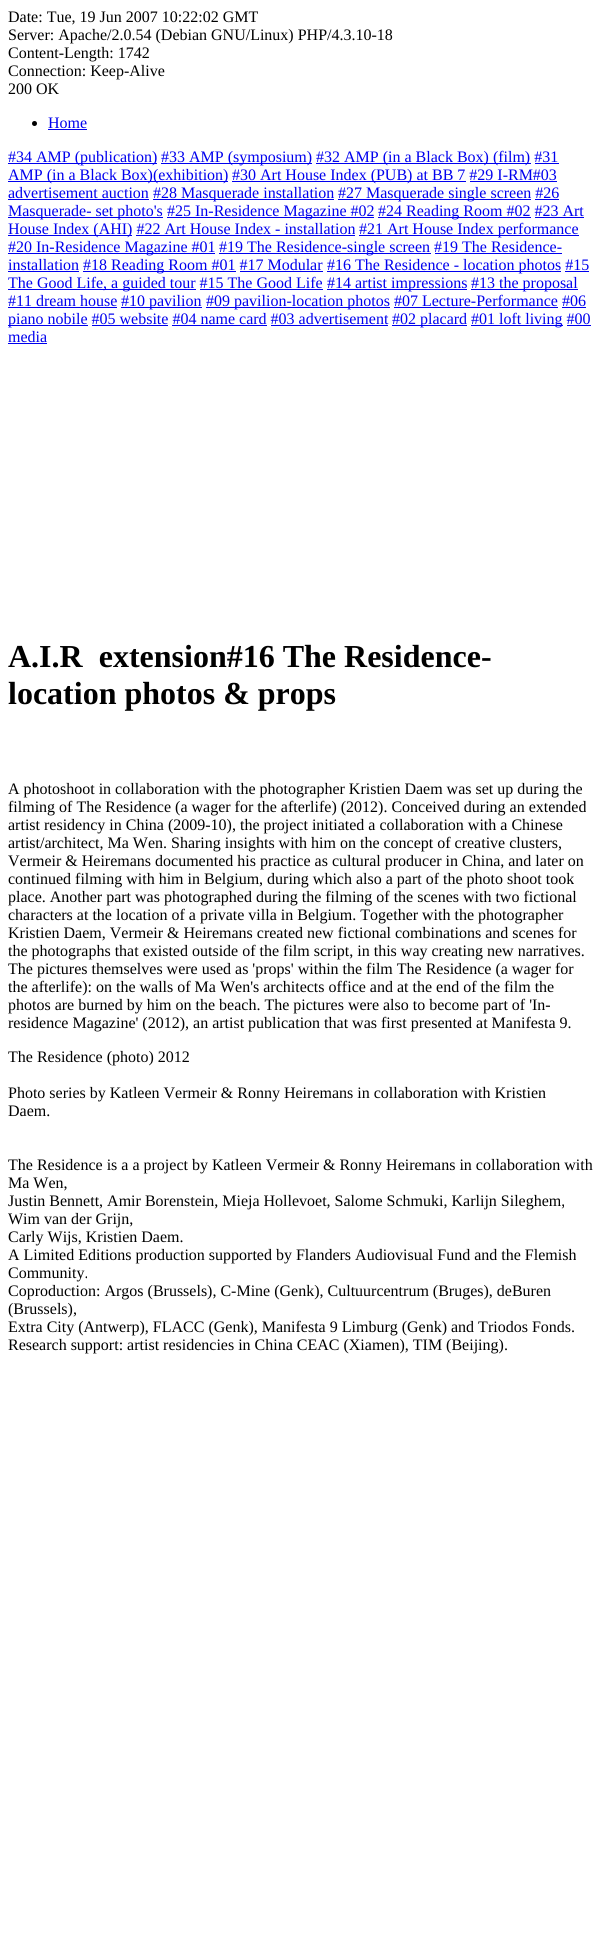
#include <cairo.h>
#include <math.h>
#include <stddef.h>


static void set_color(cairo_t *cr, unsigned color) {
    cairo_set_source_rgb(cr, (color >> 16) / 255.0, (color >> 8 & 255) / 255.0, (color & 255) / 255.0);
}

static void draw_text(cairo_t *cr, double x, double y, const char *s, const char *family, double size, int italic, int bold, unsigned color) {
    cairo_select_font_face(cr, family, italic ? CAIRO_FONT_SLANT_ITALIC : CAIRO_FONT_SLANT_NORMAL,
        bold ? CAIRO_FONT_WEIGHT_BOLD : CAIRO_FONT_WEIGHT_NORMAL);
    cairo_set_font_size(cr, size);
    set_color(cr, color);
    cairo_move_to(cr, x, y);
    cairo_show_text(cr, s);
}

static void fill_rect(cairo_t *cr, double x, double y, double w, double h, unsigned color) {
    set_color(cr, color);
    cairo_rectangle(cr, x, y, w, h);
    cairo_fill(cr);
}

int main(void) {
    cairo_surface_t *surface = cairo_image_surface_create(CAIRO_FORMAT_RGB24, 601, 1934);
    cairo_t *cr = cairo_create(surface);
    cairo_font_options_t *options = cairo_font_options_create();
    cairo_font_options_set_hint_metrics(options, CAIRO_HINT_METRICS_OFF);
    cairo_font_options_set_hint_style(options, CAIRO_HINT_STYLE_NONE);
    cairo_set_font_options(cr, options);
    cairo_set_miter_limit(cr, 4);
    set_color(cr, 0xFFFFFF);
    cairo_paint(cr);
    draw_text(cr, 8, 22, "Date: Tue, 19 Jun 2007 10:22:02 GMT", "Liberation Serif", 16, 0, 0, 0x000000);
    draw_text(cr, 8, 40, "Server: Apache/2.0.54 (Debian GNU/Linux) PHP/4.3.10-18", "Liberation Serif", 16, 0, 0, 0x000000);
    draw_text(cr, 8, 58, "Content-Length: 1742", "Liberation Serif", 16, 0, 0, 0x000000);
    draw_text(cr, 8, 76, "Connection: Keep-Alive", "Liberation Serif", 16, 0, 0, 0x000000);
    draw_text(cr, 8, 94, "200 OK", "Liberation Serif", 16, 0, 0, 0x000000);
    cairo_new_path(cr);
    cairo_arc(cr, 34.5, 123.5, 2.5, 0, 2 * M_PI);
    cairo_fill(cr);
    draw_text(cr, 48, 128, "Home", "Liberation Serif", 16, 0, 0, 0x0000EE);
    fill_rect(cr, 48, 129, 39, 1, 0x0000EE);
    fill_rect(cr, 8, 163, 149, 1, 0x0000EE);
    draw_text(cr, 8, 162, "#34 AMP (publication)", "Liberation Serif", 16, 0, 0, 0x0000EE);
    fill_rect(cr, 161, 163, 151, 1, 0x0000EE);
    draw_text(cr, 161, 162, "#33 AMP (symposium)", "Liberation Serif", 16, 0, 0, 0x0000EE);
    fill_rect(cr, 316, 163, 215, 1, 0x0000EE);
    draw_text(cr, 316, 162, "#32 AMP (in a Black Box) (film) #31", "Liberation Serif", 16, 0, 0, 0x0000EE);
    fill_rect(cr, 8, 181, 220, 1, 0x0000EE);
    draw_text(cr, 8, 180, "AMP (in a Black Box)(exhibition)", "Liberation Serif", 16, 0, 0, 0x0000EE);
    fill_rect(cr, 535, 163, 24, 1, 0x0000EE);
    fill_rect(cr, 232, 181, 234, 1, 0x0000EE);
    draw_text(cr, 232, 180, "#30 Art House Index (PUB) at BB 7 #29 I-RM#03", "Liberation Serif", 16, 0, 0, 0x0000EE);
    draw_text(cr, 8, 198, "advertisement auction", "Liberation Serif", 16, 0, 0, 0x0000EE);
    fill_rect(cr, 470, 181, 87, 1, 0x0000EE);
    fill_rect(cr, 8, 199, 141, 1, 0x0000EE);
    fill_rect(cr, 153, 199, 181, 1, 0x0000EE);
    draw_text(cr, 153, 198, "#28 Masquerade installation", "Liberation Serif", 16, 0, 0, 0x0000EE);
    fill_rect(cr, 338, 199, 193, 1, 0x0000EE);
    draw_text(cr, 338, 198, "#27 Masquerade single screen #26", "Liberation Serif", 16, 0, 0, 0x0000EE);
    fill_rect(cr, 8, 217, 155, 1, 0x0000EE);
    draw_text(cr, 8, 216, "Masquerade- set photo's", "Liberation Serif", 16, 0, 0, 0x0000EE);
    fill_rect(cr, 535, 199, 24, 1, 0x0000EE);
    fill_rect(cr, 167, 217, 207, 1, 0x0000EE);
    draw_text(cr, 167, 216, "#25 In-Residence Magazine #02", "Liberation Serif", 16, 0, 0, 0x0000EE);
    fill_rect(cr, 378, 217, 153, 1, 0x0000EE);
    draw_text(cr, 378, 216, "#24 Reading Room #02 #23 Art", "Liberation Serif", 16, 0, 0, 0x0000EE);
    fill_rect(cr, 8, 235, 124, 1, 0x0000EE);
    draw_text(cr, 8, 234, "House Index (AHI) #22 Art House Index - installation", "Liberation Serif", 16, 0, 0, 0x0000EE);
    fill_rect(cr, 535, 217, 49, 1, 0x0000EE);
    fill_rect(cr, 359, 235, 220, 1, 0x0000EE);
    draw_text(cr, 359, 234, "#21 Art House Index performance", "Liberation Serif", 16, 0, 0, 0x0000EE);
    fill_rect(cr, 136, 235, 219, 1, 0x0000EE);
    fill_rect(cr, 8, 253, 207, 1, 0x0000EE);
    draw_text(cr, 8, 252, "#20 In-Residence Magazine #01", "Liberation Serif", 16, 0, 0, 0x0000EE);
    fill_rect(cr, 219, 253, 212, 1, 0x0000EE);
    draw_text(cr, 219, 252, "#19 The Residence-single screen #19 The Residence-", "Liberation Serif", 16, 0, 0, 0x0000EE);
    draw_text(cr, 8, 270, "installation", "Liberation Serif", 16, 0, 0, 0x0000EE);
    fill_rect(cr, 435, 253, 127, 1, 0x0000EE);
    fill_rect(cr, 8, 271, 71, 1, 0x0000EE);
    fill_rect(cr, 83, 271, 153, 1, 0x0000EE);
    draw_text(cr, 83, 270, "#18 Reading Room #01 #17 Modular", "Liberation Serif", 16, 0, 0, 0x0000EE);
    fill_rect(cr, 327, 271, 234, 1, 0x0000EE);
    draw_text(cr, 327, 270, "#16 The Residence - location photos #15", "Liberation Serif", 16, 0, 0, 0x0000EE);
    fill_rect(cr, 240, 271, 83, 1, 0x0000EE);
    fill_rect(cr, 8, 289, 188, 1, 0x0000EE);
    draw_text(cr, 8, 288, "The Good Life, a guided tour #15 The Good Life", "Liberation Serif", 16, 0, 0, 0x0000EE);
    fill_rect(cr, 565, 271, 24, 1, 0x0000EE);
    fill_rect(cr, 327, 289, 140, 1, 0x0000EE);
    draw_text(cr, 327, 288, "#14 artist impressions", "Liberation Serif", 16, 0, 0, 0x0000EE);
    fill_rect(cr, 471, 289, 107, 1, 0x0000EE);
    draw_text(cr, 471, 288, "#13 the proposal", "Liberation Serif", 16, 0, 0, 0x0000EE);
    fill_rect(cr, 200, 289, 123, 1, 0x0000EE);
    draw_text(cr, 8, 306, "#11 dream house", "Liberation Serif", 16, 0, 0, 0x0000EE);
    fill_rect(cr, 8, 307, 109, 1, 0x0000EE);
    fill_rect(cr, 121, 307, 81, 1, 0x0000EE);
    draw_text(cr, 121, 306, "#10 pavilion", "Liberation Serif", 16, 0, 0, 0x0000EE);
    fill_rect(cr, 206, 307, 184, 1, 0x0000EE);
    draw_text(cr, 206, 306, "#09 pavilion-location photos #07 Lecture-Performance #06", "Liberation Serif", 16, 0, 0, 0x0000EE);
    fill_rect(cr, 394, 307, 164, 1, 0x0000EE);
    fill_rect(cr, 8, 325, 80, 1, 0x0000EE);
    draw_text(cr, 8, 324, "piano nobile #05 website #04 name card #03 advertisement", "Liberation Serif", 16, 0, 0, 0x0000EE);
    fill_rect(cr, 562, 307, 24, 1, 0x0000EE);
    fill_rect(cr, 392, 325, 75, 1, 0x0000EE);
    draw_text(cr, 392, 324, "#02 placard", "Liberation Serif", 16, 0, 0, 0x0000EE);
    fill_rect(cr, 471, 325, 92, 1, 0x0000EE);
    draw_text(cr, 471, 324, "#01 loft living #00", "Liberation Serif", 16, 0, 0, 0x0000EE);
    fill_rect(cr, 92, 325, 76, 1, 0x0000EE);
    fill_rect(cr, 172, 325, 95, 1, 0x0000EE);
    fill_rect(cr, 271, 325, 117, 1, 0x0000EE);
    draw_text(cr, 8, 342, "media", "Liberation Serif", 16, 0, 0, 0x0000EE);
    fill_rect(cr, 567, 325, 24, 1, 0x0000EE);
    fill_rect(cr, 8, 343, 39, 1, 0x0000EE);
    draw_text(cr, 8, 667, "A.I.R  extension#16 The Residence-", "Liberation Serif", 32, 0, 1, 0x000000);
    draw_text(cr, 8, 704, "location photos & props", "Liberation Serif", 32, 0, 1, 0x000000);
    draw_text(cr, 8, 794, "A photoshoot in collaboration with the photographer Kristien Daem was set up during the", "Liberation Serif", 16, 0, 0, 0x000000);
    draw_text(cr, 8, 812, "filming of The Residence (a wager for the afterlife) (2012). Conceived during an extended", "Liberation Serif", 16, 0, 0, 0x000000);
    draw_text(cr, 8, 830, "artist residency in China (2009-10), the project initiated a collaboration with a Chinese", "Liberation Serif", 16, 0, 0, 0x000000);
    draw_text(cr, 8, 848, "artist/architect, Ma Wen. Sharing insights with him on the concept of creative clusters,", "Liberation Serif", 16, 0, 0, 0x000000);
    draw_text(cr, 8, 866, "Vermeir & Heiremans documented his practice as cultural producer in China, and later on", "Liberation Serif", 16, 0, 0, 0x000000);
    draw_text(cr, 8, 884, "continued filming with him in Belgium, during which also a part of the photo shoot took", "Liberation Serif", 16, 0, 0, 0x000000);
    draw_text(cr, 8, 902, "place. Another part was photographed during the filming of the scenes with two fictional", "Liberation Serif", 16, 0, 0, 0x000000);
    draw_text(cr, 8, 920, "characters at the location of a private villa in Belgium. Together with the photographer", "Liberation Serif", 16, 0, 0, 0x000000);
    draw_text(cr, 8, 938, "Kristien Daem, Vermeir & Heiremans created new fictional combinations and scenes for", "Liberation Serif", 16, 0, 0, 0x000000);
    draw_text(cr, 8, 956, "the photographs that existed outside of the film script, in this way creating new narratives.", "Liberation Serif", 16, 0, 0, 0x000000);
    draw_text(cr, 8, 974, "The pictures themselves were used as 'props' within the film The Residence (a wager for", "Liberation Serif", 16, 0, 0, 0x000000);
    draw_text(cr, 8, 992, "the afterlife): on the walls of Ma Wen's architects office and at the end of the film the", "Liberation Serif", 16, 0, 0, 0x000000);
    draw_text(cr, 8, 1010, "photos are burned by him on the beach. The pictures were also to become part of 'In-", "Liberation Serif", 16, 0, 0, 0x000000);
    draw_text(cr, 8, 1028, "residence Magazine' (2012), an artist publication that was first presented at Manifesta 9.", "Liberation Serif", 16, 0, 0, 0x000000);
    draw_text(cr, 8, 1062, "The Residence (photo) 2012", "Liberation Serif", 16, 0, 0, 0x000000);
    draw_text(cr, 8, 1098, "Photo series by Katleen Vermeir & Ronny Heiremans in collaboration with Kristien", "Liberation Serif", 16, 0, 0, 0x000000);
    draw_text(cr, 8, 1116, "Daem.", "Liberation Serif", 16, 0, 0, 0x000000);
    draw_text(cr, 8, 1170, "The Residence is a a project by Katleen Vermeir & Ronny Heiremans in collaboration with", "Liberation Serif", 16, 0, 0, 0x000000);
    draw_text(cr, 8, 1188, "Ma Wen,", "Liberation Serif", 16, 0, 0, 0x000000);
    draw_text(cr, 8, 1206, "Justin Bennett, Amir Borenstein, Mieja Hollevoet, Salome Schmuki, Karlijn Sileghem,", "Liberation Serif", 16, 0, 0, 0x000000);
    draw_text(cr, 8, 1224, "Wim van der Grijn,", "Liberation Serif", 16, 0, 0, 0x000000);
    draw_text(cr, 8, 1242, "Carly Wijs, Kristien Daem.", "Liberation Serif", 16, 0, 0, 0x000000);
    draw_text(cr, 8, 1260, "A Limited Editions production supported by Flanders Audiovisual Fund and the Flemish", "Liberation Serif", 16, 0, 0, 0x000000);
    draw_text(cr, 8, 1278, "Community.", "Liberation Serif", 16, 0, 0, 0x000000);
    draw_text(cr, 8, 1296, "Coproduction: Argos (Brussels), C-Mine (Genk), Cultuurcentrum (Bruges), deBuren", "Liberation Serif", 16, 0, 0, 0x000000);
    draw_text(cr, 8, 1314, "(Brussels),", "Liberation Serif", 16, 0, 0, 0x000000);
    draw_text(cr, 8, 1332, "Extra City (Antwerp), FLACC (Genk), Manifesta 9 Limburg (Genk) and Triodos Fonds.", "Liberation Serif", 16, 0, 0, 0x000000);
    draw_text(cr, 8, 1350, "Research support: artist residencies in China CEAC (Xiamen), TIM (Beijing).", "Liberation Serif", 16, 0, 0, 0x000000);
    cairo_surface_write_to_png(surface, "output.png");
    cairo_font_options_destroy(options);
    cairo_destroy(cr);
    cairo_surface_destroy(surface);
    return 0;
}
